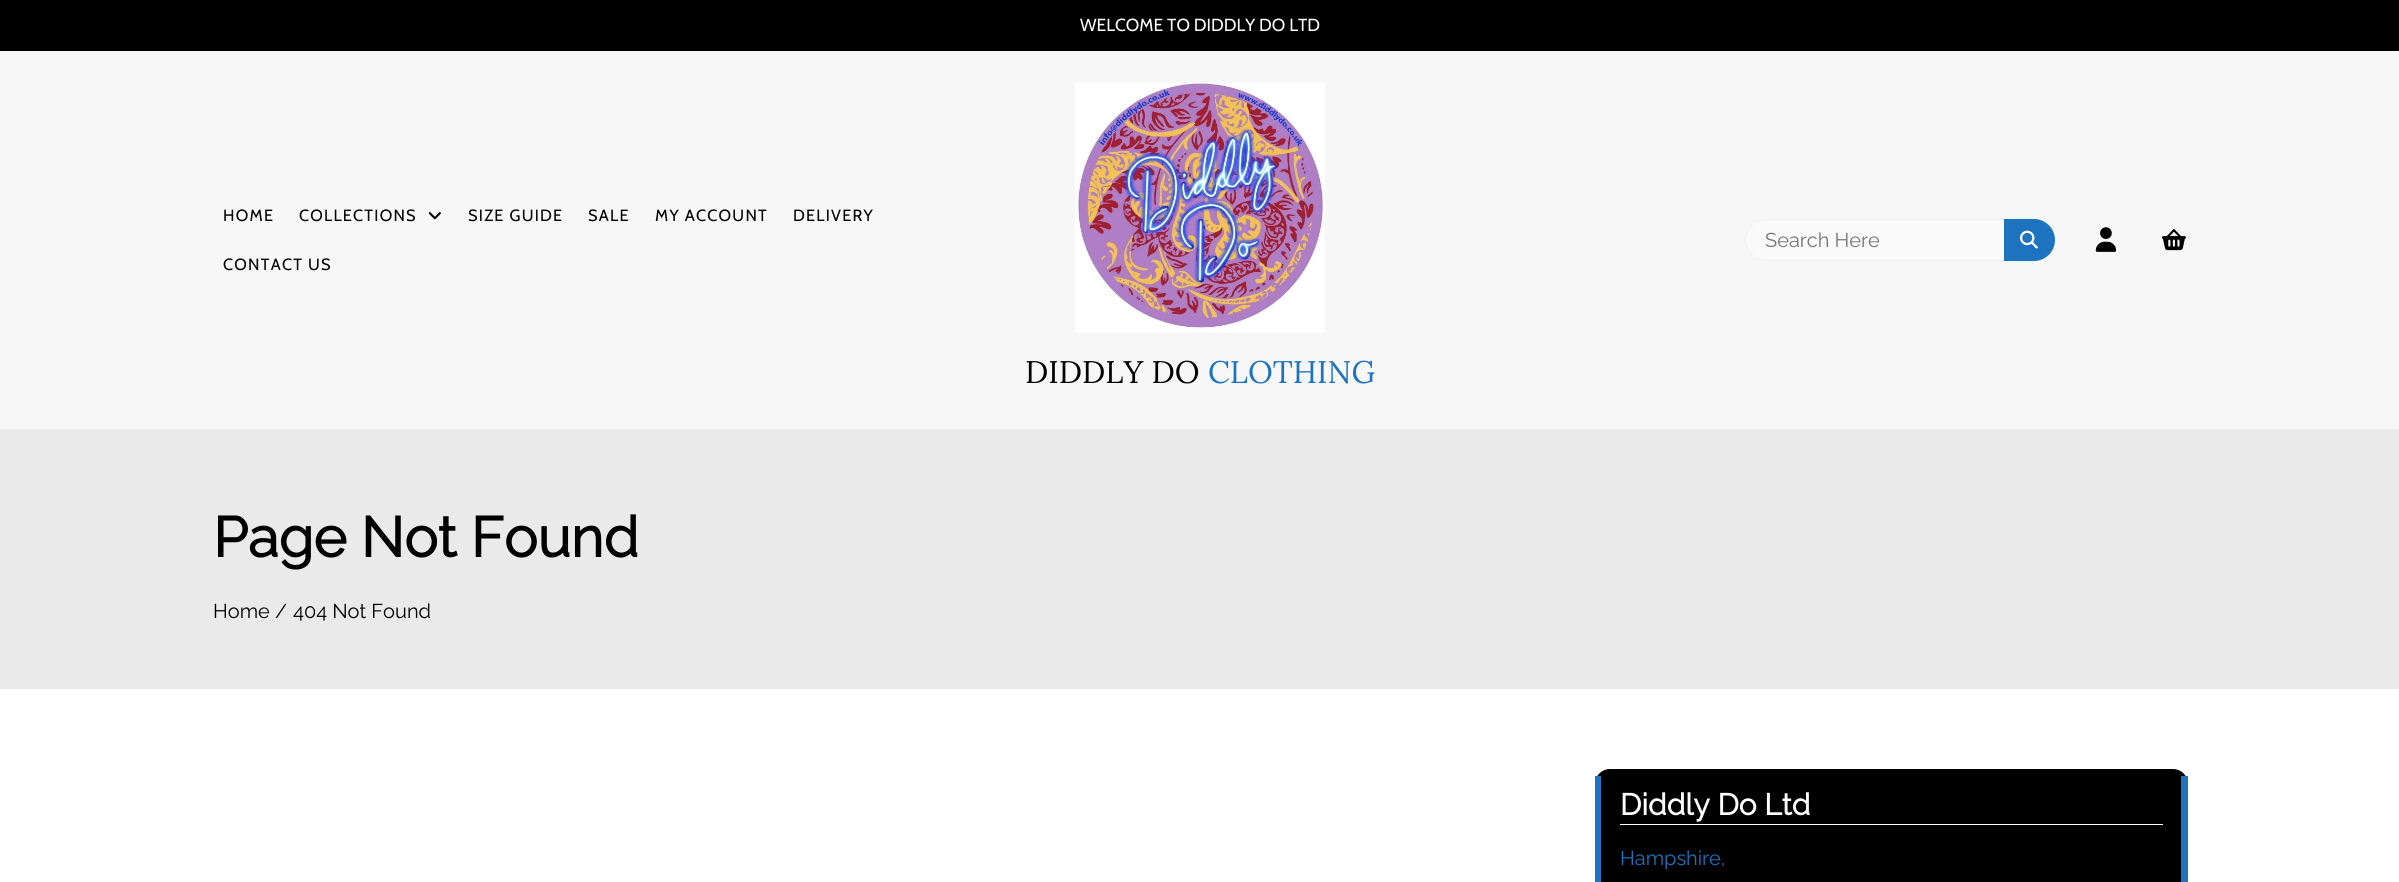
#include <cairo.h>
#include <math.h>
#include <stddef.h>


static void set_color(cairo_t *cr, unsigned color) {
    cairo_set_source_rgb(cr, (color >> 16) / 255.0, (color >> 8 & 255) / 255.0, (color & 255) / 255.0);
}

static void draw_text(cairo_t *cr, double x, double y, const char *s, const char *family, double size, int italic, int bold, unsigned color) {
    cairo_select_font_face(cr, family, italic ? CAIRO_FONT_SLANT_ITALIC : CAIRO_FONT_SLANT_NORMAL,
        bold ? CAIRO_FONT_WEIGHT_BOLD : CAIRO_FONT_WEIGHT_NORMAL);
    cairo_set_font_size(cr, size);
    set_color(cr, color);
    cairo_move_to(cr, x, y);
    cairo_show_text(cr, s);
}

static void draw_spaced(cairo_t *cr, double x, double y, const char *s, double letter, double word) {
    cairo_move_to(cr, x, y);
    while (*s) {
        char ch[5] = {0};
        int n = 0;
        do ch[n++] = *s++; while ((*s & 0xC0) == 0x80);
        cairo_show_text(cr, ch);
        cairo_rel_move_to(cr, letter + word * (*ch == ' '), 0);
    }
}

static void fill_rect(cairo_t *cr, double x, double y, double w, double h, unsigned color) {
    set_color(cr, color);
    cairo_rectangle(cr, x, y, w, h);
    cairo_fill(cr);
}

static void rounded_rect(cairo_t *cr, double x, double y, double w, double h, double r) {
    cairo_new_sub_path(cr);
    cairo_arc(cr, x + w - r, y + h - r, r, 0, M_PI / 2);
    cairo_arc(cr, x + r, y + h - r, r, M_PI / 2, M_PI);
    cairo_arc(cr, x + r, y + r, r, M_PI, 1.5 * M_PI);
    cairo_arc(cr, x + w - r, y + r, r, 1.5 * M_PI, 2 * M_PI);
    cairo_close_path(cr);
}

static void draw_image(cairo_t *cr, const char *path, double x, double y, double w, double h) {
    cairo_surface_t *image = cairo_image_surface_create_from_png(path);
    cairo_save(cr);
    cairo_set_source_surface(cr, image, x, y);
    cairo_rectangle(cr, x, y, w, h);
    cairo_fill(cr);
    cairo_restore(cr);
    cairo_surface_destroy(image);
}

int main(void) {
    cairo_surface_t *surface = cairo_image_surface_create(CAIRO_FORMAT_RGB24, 2399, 882);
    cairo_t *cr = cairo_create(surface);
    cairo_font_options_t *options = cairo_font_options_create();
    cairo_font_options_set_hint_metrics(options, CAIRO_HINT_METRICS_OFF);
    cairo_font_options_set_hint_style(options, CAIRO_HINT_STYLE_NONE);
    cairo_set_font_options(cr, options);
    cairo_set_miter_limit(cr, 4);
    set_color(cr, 0xFFFFFF);
    cairo_paint(cr);
    fill_rect(cr, 0, 0, 2399, 51, 0x000000);
    draw_text(cr, 1080, 31, "WELCOME TO DIDDLY DO LTD", "Cabin", 17.5, 0, 0, 0xFFFFFF);
    fill_rect(cr, 0, 51, 2399, 378, 0xF7F7F7);
    cairo_set_font_size(cr, 16.25);
    set_color(cr, 0x000000);
    draw_spaced(cr, 223, 221, "HOME", 1.25, 0);
    draw_spaced(cr, 299, 221, "COLLECTIONS", 1.25, 0);
    draw_image(cr, "assets/img1.png", 428, 212, 13, 8);
    draw_spaced(cr, 468, 221, "SIZE GUIDE", 1.25, 0);
    draw_spaced(cr, 588, 221, "SALE", 1.25, 0);
    draw_spaced(cr, 655, 221, "MY ACCOUNT", 1.25, 0);
    draw_spaced(cr, 793, 221, "DELIVERY", 1.25, 0);
    draw_spaced(cr, 223, 270, "CONTACT US", 1.25, 0);
    set_color(cr, 0xFAFAFA);
    rounded_rect(cr, 1745.5, 219.5, 308, 41, 20.5);
    cairo_fill_preserve(cr);
    set_color(cr, 0xF0F0F0);
    cairo_set_line_width(cr, 1);
    cairo_stroke(cr);
    draw_text(cr, 1765, 247, "Search Here", "Raleway Thin", 20, 0, 0, 0x757575);
    set_color(cr, 0x1E73BE);
    cairo_new_path(cr);
    cairo_move_to(cr, 2004, 219);
    cairo_line_to(cr, 2034, 219);
    cairo_curve_to(cr, 2045.5, 219, 2055, 228.5, 2055, 240);
    cairo_curve_to(cr, 2055, 251.5, 2045.5, 261, 2034, 261);
    cairo_line_to(cr, 2004, 261);
    cairo_close_path(cr);
    cairo_fill(cr);
    draw_image(cr, "assets/img2.png", 2020, 230, 18, 19);
    draw_image(cr, "assets/img3.png", 2095, 227, 22, 25);
    draw_image(cr, "assets/img4.png", 2162, 229, 24, 22);
    draw_image(cr, "assets/img5.png", 1075, 82, 250, 251);
    draw_text(cr, 1025, 383, "DIDDLY DO", "Lora", 31.25, 0, 0, 0x000000);
    draw_text(cr, 1208, 383, "CLOTHING", "Lora", 31.25, 0, 0, 0x1E73BE);
    fill_rect(cr, 0, 429, 2399, 260, 0xEAEAEA);
    draw_text(cr, 213, 557, "Page Not Found", "Raleway", 56.25, 0, 1, 0x000000);
    draw_text(cr, 213, 618, "Home", "Raleway Thin", 20, 0, 0, 0x000000);
    draw_text(cr, 275, 618, "/", "Raleway Thin", 20, 0, 0, 0x000000);
    draw_text(cr, 293, 618, "404 Not Found", "Raleway Thin", 20, 0, 0, 0x000000);
    rounded_rect(cr, 1595, 769, 593, 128, 15);
    cairo_fill(cr);
    fill_rect(cr, 2181, 776, 7, 106, 0x1E73BE);
    fill_rect(cr, 1595, 776, 6, 106, 0x1E73BE);
    fill_rect(cr, 1620, 824, 543, 1, 0xFFFFFF);
    draw_text(cr, 1620, 815, "Diddly Do Ltd", "Raleway", 30, 0, 1, 0xFFFFFF);
    draw_text(cr, 1620, 865, "Hampshire,", "Raleway Thin", 20, 0, 0, 0x1E73BE);
    cairo_surface_write_to_png(surface, "output.png");
    cairo_font_options_destroy(options);
    cairo_destroy(cr);
    cairo_surface_destroy(surface);
    return 0;
}
